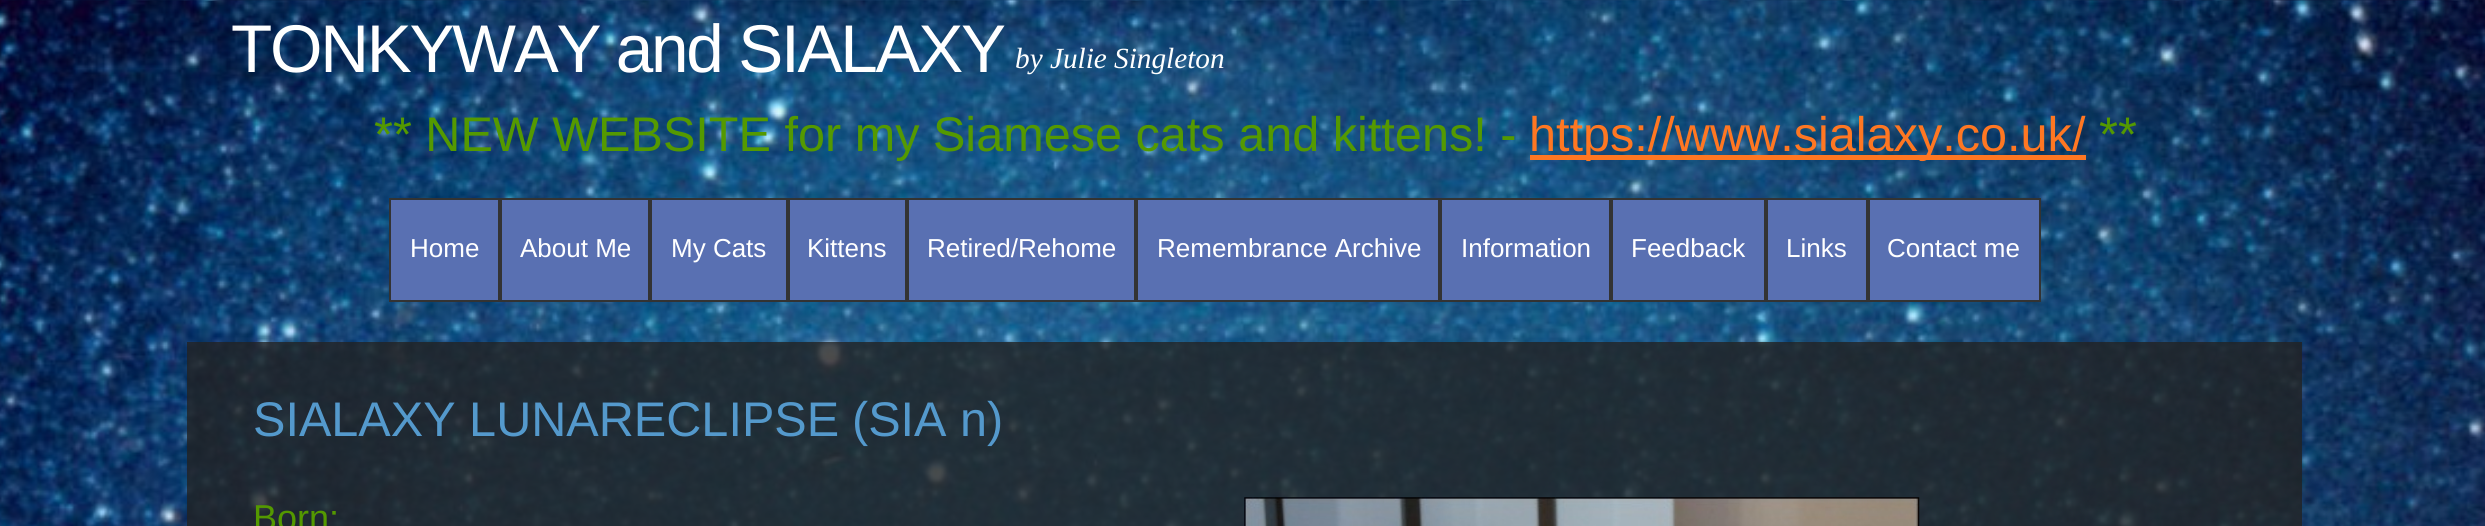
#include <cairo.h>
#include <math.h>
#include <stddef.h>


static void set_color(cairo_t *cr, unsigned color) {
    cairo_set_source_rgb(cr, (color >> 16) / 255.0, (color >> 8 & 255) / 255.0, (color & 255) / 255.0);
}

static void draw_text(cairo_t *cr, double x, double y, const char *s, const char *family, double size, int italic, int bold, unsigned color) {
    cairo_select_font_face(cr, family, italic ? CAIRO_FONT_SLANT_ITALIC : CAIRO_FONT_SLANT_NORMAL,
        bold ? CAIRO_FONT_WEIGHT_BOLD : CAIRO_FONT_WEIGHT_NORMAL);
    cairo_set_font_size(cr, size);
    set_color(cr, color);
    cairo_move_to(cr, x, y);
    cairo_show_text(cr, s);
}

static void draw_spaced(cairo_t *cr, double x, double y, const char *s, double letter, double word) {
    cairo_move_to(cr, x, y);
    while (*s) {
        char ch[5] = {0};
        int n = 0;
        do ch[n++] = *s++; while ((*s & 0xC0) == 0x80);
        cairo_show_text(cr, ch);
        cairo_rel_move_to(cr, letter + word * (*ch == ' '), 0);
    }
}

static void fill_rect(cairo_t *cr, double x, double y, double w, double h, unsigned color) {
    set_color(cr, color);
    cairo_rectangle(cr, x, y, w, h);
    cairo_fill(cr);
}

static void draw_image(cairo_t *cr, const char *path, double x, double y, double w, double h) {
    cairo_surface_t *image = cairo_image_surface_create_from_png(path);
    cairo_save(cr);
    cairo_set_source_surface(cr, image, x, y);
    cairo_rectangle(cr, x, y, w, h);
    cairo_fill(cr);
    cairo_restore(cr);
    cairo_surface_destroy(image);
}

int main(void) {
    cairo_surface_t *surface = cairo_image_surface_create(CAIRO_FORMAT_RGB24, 2485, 526);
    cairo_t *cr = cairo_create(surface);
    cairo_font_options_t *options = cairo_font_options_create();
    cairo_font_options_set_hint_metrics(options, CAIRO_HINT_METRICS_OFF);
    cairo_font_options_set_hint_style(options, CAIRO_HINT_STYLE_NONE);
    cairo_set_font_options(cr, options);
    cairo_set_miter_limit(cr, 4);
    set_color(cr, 0xFFFFFF);
    cairo_paint(cr);
    draw_image(cr, "assets/img1.png", 0, 0, 2485, 526);
    cairo_select_font_face(cr, "Liberation Sans", CAIRO_FONT_SLANT_NORMAL, CAIRO_FONT_WEIGHT_NORMAL);
    cairo_set_font_size(cr, 67.5);
    set_color(cr, 0xFFFFFF);
    draw_spaced(cr, 231, 72, "TONKYWAY and SIALAXY", -2.25, 0);
    draw_text(cr, 1015, 68, "by Julie Singleton", "Liberation Serif", 29.25, 1, 0, 0xFFFFFF);
    draw_text(cr, 374, 151, "** NEW WEBSITE for my Siamese cats and kittens! -", "Liberation Sans", 48.6, 0, 0, 0x549900);
    fill_rect(cr, 1530, 155, 556, 5, 0xFF7722);
    draw_text(cr, 1529, 151, "https://www.sialaxy.co.uk/", "Liberation Sans", 48.6, 0, 0, 0xFF7722);
    draw_text(cr, 2099, 151, "**", "Liberation Sans", 48.6, 0, 0, 0x549900);
    set_color(cr, 0x5970B2);
    cairo_rectangle(cr, 390, 199, 109, 102);
    cairo_fill_preserve(cr);
    set_color(cr, 0x333333);
    cairo_stroke(cr);
    draw_text(cr, 410, 257, "Home", "Liberation Sans", 26, 0, 0, 0xFFFFFF);
    set_color(cr, 0x5970B2);
    cairo_rectangle(cr, 501, 199, 148, 102);
    cairo_fill_preserve(cr);
    set_color(cr, 0x333333);
    cairo_stroke(cr);
    draw_text(cr, 520, 257, "About Me", "Liberation Sans", 26, 0, 0, 0xFFFFFF);
    set_color(cr, 0x5970B2);
    cairo_rectangle(cr, 651, 199, 136, 102);
    cairo_fill_preserve(cr);
    set_color(cr, 0x333333);
    cairo_stroke(cr);
    draw_text(cr, 671, 257, "My Cats", "Liberation Sans", 26, 0, 0, 0xFFFFFF);
    set_color(cr, 0x5970B2);
    cairo_rectangle(cr, 789, 199, 117, 102);
    cairo_fill_preserve(cr);
    set_color(cr, 0x333333);
    cairo_stroke(cr);
    draw_text(cr, 807, 257, "Kittens", "Liberation Sans", 26, 0, 0, 0xFFFFFF);
    set_color(cr, 0x5970B2);
    cairo_rectangle(cr, 908, 199, 227, 102);
    cairo_fill_preserve(cr);
    set_color(cr, 0x333333);
    cairo_stroke(cr);
    draw_text(cr, 927, 257, "Retired/Rehome", "Liberation Sans", 26, 0, 0, 0xFFFFFF);
    set_color(cr, 0x5970B2);
    cairo_rectangle(cr, 1137, 199, 302, 102);
    cairo_fill_preserve(cr);
    set_color(cr, 0x333333);
    cairo_stroke(cr);
    draw_text(cr, 1157, 257, "Remembrance Archive", "Liberation Sans", 26, 0, 0, 0xFFFFFF);
    set_color(cr, 0x5970B2);
    cairo_rectangle(cr, 1441, 199, 169, 102);
    cairo_fill_preserve(cr);
    set_color(cr, 0x333333);
    cairo_stroke(cr);
    draw_text(cr, 1461, 257, "Information", "Liberation Sans", 26, 0, 0, 0xFFFFFF);
    set_color(cr, 0x5970B2);
    cairo_rectangle(cr, 1612, 199, 153, 102);
    cairo_fill_preserve(cr);
    set_color(cr, 0x333333);
    cairo_stroke(cr);
    draw_text(cr, 1631, 257, "Feedback", "Liberation Sans", 26, 0, 0, 0xFFFFFF);
    set_color(cr, 0x5970B2);
    cairo_rectangle(cr, 1767, 199, 100, 102);
    cairo_fill_preserve(cr);
    set_color(cr, 0x333333);
    cairo_stroke(cr);
    draw_text(cr, 1786, 257, "Links", "Liberation Sans", 26, 0, 0, 0xFFFFFF);
    set_color(cr, 0x5970B2);
    cairo_rectangle(cr, 1869, 199, 171, 102);
    cairo_fill_preserve(cr);
    set_color(cr, 0x333333);
    cairo_stroke(cr);
    draw_text(cr, 1887, 257, "Contact me", "Liberation Sans", 26, 0, 0, 0xFFFFFF);
    cairo_set_source_rgba(cr, 0.133, 0.133, 0.133, 0.8);
    cairo_rectangle(cr, 187, 342, 2115, 184);
    cairo_fill(cr);
    draw_text(cr, 253, 436, "SIALAXY LUNARECLIPSE", "Liberation Sans", 48.6, 0, 0, 0x5499CC);
    draw_text(cr, 852, 436, "(SIA n)", "Liberation Sans", 48.6, 0, 0, 0x5499CC);
    draw_text(cr, 253, 530, "Born:", "Liberation Sans", 36, 0, 0, 0x549900);
    draw_image(cr, "assets/img2.png", 1244, 497, 676, 29);
    cairo_surface_write_to_png(surface, "output.png");
    cairo_font_options_destroy(options);
    cairo_destroy(cr);
    cairo_surface_destroy(surface);
    return 0;
}
